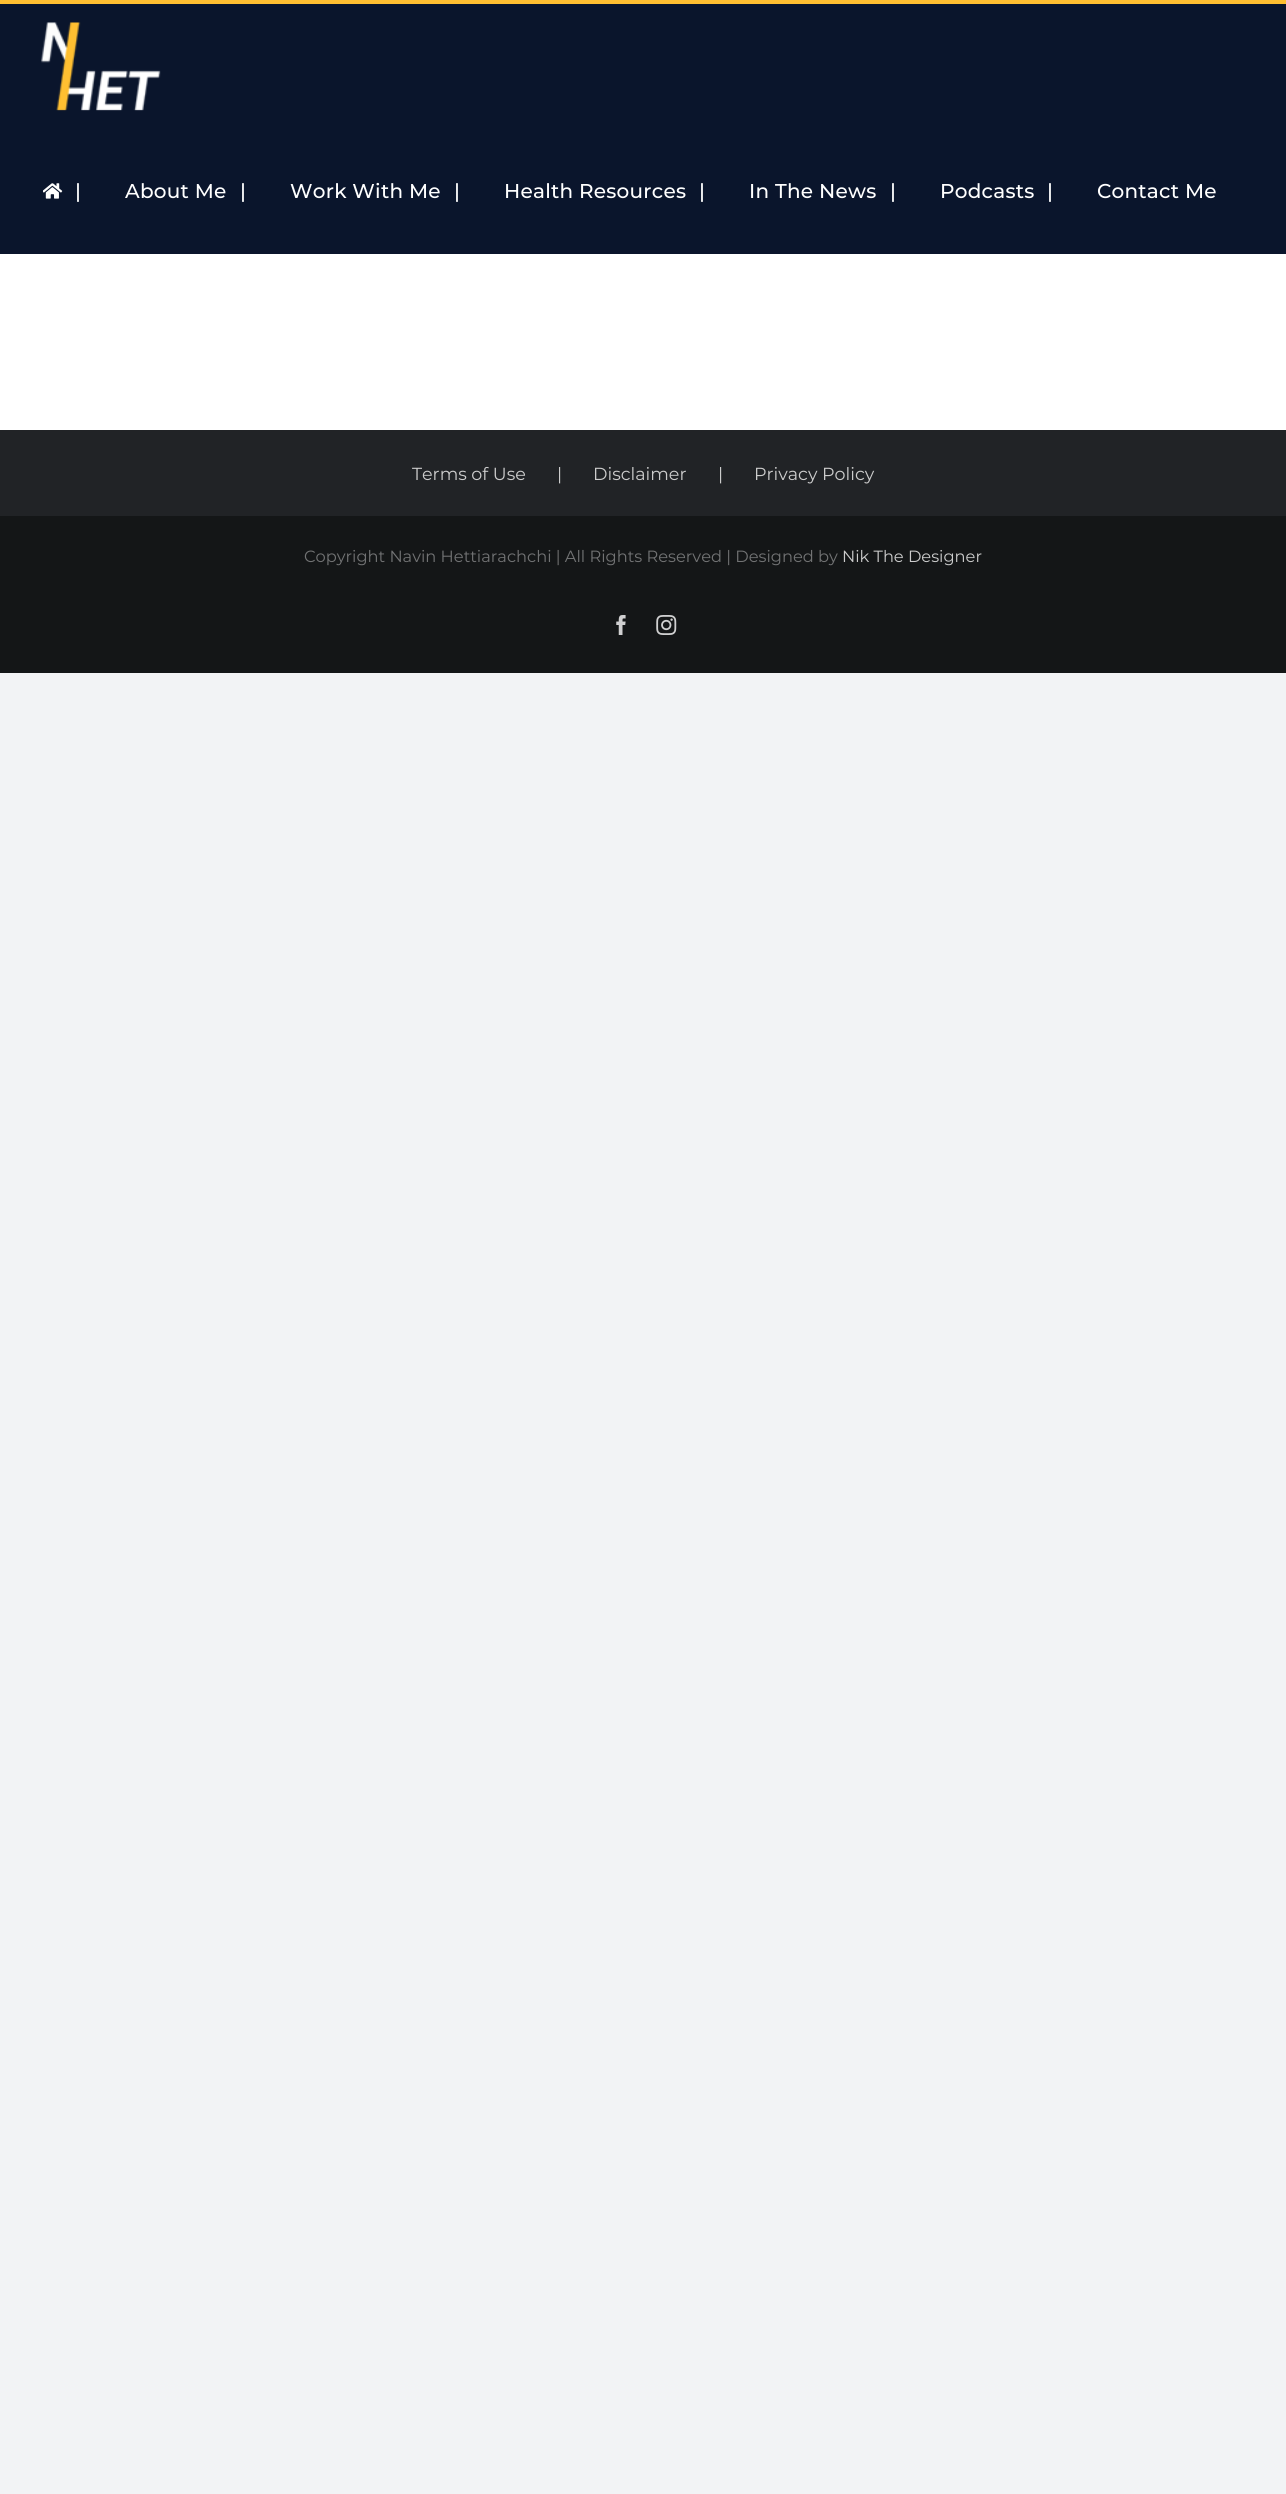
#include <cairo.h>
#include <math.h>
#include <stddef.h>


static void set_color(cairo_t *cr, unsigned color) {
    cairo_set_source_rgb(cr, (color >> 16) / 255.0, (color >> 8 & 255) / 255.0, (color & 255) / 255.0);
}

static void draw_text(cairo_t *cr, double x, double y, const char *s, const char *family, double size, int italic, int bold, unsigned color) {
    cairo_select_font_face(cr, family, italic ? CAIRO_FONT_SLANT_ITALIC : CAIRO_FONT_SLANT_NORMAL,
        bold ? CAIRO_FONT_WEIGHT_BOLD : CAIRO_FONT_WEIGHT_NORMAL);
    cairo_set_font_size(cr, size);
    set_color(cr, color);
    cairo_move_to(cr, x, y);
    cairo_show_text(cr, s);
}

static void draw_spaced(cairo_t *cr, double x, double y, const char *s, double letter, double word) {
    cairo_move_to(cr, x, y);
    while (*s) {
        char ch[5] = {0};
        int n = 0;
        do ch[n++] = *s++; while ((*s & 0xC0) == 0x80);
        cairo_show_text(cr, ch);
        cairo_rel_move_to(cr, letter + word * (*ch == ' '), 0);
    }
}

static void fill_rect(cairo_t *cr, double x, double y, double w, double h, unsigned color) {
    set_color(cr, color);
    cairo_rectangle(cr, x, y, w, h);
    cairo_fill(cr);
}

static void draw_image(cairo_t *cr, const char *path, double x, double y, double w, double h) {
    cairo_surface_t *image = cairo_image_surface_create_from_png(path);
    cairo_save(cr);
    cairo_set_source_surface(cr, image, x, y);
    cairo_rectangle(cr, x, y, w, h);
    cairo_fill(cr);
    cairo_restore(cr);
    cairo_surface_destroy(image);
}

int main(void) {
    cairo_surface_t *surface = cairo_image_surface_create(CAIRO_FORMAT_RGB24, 1286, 2494);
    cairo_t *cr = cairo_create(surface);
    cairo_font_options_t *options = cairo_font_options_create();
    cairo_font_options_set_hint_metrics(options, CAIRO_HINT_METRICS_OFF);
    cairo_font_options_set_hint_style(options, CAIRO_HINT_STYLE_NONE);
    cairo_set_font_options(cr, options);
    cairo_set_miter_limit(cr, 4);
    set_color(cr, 0xF2F3F5);
    cairo_paint(cr);
    fill_rect(cr, 0, 254, 1286, 176, 0xFFFFFF);
    fill_rect(cr, 0, 4, 1286, 250, 0x0A152C);
    fill_rect(cr, 0, 0, 1286, 4, 0xFFBF31);
    draw_image(cr, "assets/img1.png", 41, 22, 120, 89);
    draw_image(cr, "assets/img2.png", 43, 183, 20, 16);
    cairo_select_font_face(cr, "Montserrat Medium", CAIRO_FONT_SLANT_NORMAL, CAIRO_FONT_WEIGHT_NORMAL);
    cairo_set_font_size(cr, 20);
    set_color(cr, 0xFFFFFF);
    draw_spaced(cr, 75, 198, "|", 0.25, 0);
    draw_spaced(cr, 125, 198, "About Me", 0.25, 0);
    draw_spaced(cr, 240, 198, "|", 0.25, 0);
    draw_spaced(cr, 290, 198, "Work With Me", 0.25, 0);
    draw_spaced(cr, 454, 198, "|", 0.25, 0);
    draw_spaced(cr, 504, 198, "Health Resources", 0.25, 0);
    draw_spaced(cr, 699, 198, "|", 0.25, 0);
    draw_spaced(cr, 749, 198, "In The News", 0.25, 0);
    draw_spaced(cr, 890, 198, "|", 0.25, 0);
    draw_spaced(cr, 940, 198, "Podcasts", 0.25, 0);
    draw_spaced(cr, 1047, 198, "|", 0.25, 0);
    draw_spaced(cr, 1097, 198, "Contact Me", 0.25, 0);
    fill_rect(cr, 0, 430, 1286, 86, 0x212326);
    draw_text(cr, 412, 480, "Terms of Use", "Montserrat", 17.5, 0, 0, 0xCCCCCC);
    draw_text(cr, 557, 480, "|", "Montserrat", 17.5, 0, 0, 0xCCCCCC);
    draw_text(cr, 593, 480, "Disclaimer", "Montserrat", 17.5, 0, 0, 0xCCCCCC);
    draw_text(cr, 718, 480, "|", "Montserrat", 17.5, 0, 0, 0xCCCCCC);
    draw_text(cr, 754, 480, "Privacy Policy", "Montserrat", 17.5, 0, 0, 0xCCCCCC);
    fill_rect(cr, 0, 516, 1286, 157, 0x141617);
    draw_text(cr, 304, 562, "Copyright Navin Hettiarachchi | All Rights Reserved | Designed by", "Montserrat", 16.25, 0, 0, 0x727374);
    draw_text(cr, 842, 562, "Nik The Designer", "Montserrat", 16.25, 0, 0, 0xCCCCCC);
    draw_image(cr, "assets/img3.png", 616, 615, 10, 20);
    draw_image(cr, "assets/img4.png", 656, 615, 21, 20);
    cairo_surface_write_to_png(surface, "output.png");
    cairo_font_options_destroy(options);
    cairo_destroy(cr);
    cairo_surface_destroy(surface);
    return 0;
}
